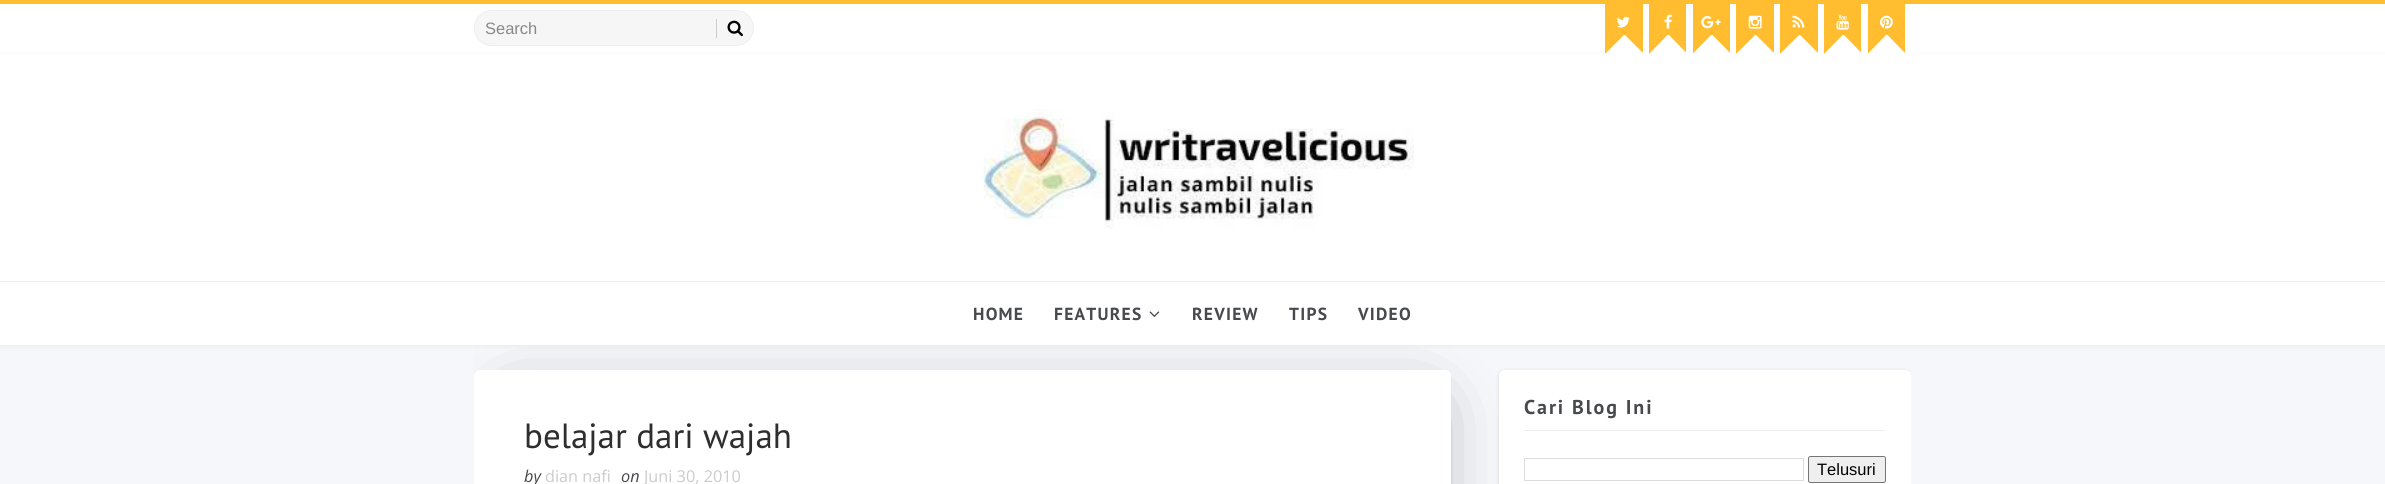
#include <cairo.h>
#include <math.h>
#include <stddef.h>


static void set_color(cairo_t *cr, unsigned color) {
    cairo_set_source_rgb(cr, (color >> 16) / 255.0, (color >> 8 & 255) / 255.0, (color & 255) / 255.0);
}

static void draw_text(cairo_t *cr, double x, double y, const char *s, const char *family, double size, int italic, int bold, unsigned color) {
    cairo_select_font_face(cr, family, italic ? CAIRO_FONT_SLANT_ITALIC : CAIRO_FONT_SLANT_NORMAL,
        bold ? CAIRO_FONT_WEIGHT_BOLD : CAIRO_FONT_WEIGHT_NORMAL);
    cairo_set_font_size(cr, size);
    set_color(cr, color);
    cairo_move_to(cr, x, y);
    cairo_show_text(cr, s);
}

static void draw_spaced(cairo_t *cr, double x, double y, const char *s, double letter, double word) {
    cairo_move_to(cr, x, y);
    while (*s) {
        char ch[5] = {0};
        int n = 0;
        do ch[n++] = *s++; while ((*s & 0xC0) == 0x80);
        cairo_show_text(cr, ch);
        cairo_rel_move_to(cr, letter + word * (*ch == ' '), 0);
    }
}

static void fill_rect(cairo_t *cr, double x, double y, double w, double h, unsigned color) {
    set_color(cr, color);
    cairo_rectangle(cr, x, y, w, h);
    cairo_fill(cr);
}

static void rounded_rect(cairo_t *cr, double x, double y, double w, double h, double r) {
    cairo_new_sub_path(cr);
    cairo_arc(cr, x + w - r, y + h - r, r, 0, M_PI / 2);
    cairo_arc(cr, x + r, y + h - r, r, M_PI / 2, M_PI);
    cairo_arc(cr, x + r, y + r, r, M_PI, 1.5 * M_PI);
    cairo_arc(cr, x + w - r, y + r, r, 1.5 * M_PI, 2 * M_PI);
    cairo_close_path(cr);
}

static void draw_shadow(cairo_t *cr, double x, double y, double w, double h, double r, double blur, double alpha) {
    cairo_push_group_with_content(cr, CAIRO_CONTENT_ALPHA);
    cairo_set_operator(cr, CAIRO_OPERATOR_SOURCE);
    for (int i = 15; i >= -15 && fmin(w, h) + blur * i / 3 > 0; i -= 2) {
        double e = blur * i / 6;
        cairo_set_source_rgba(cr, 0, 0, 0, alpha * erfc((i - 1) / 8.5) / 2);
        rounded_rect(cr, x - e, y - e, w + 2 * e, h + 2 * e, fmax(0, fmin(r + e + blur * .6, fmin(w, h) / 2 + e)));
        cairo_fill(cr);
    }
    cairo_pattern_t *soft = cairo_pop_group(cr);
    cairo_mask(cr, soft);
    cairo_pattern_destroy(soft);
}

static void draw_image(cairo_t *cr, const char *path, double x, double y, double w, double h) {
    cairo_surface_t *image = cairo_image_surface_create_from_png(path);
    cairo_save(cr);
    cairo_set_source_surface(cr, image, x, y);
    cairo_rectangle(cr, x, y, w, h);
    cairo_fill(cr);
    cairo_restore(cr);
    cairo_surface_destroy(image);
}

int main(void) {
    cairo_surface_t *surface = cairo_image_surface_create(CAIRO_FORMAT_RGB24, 2385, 484);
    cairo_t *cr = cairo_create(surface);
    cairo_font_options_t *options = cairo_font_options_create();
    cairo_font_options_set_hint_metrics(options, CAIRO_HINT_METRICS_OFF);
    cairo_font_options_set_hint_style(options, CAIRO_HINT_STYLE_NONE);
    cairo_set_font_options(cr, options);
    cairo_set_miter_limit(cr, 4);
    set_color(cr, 0xF6F7FB);
    cairo_paint(cr);
    fill_rect(cr, 0, 4, 2385, 50, 0xFFFFFF);
    fill_rect(cr, 0, 0, 2385, 4, 0xFFBD2F);
    set_color(cr, 0xF6F6F6);
    rounded_rect(cr, 474.5, 10.5, 279, 35, 17.5);
    cairo_fill_preserve(cr);
    set_color(cr, 0xEEEEEE);
    cairo_set_line_width(cr, 1);
    cairo_stroke(cr);
    fill_rect(cr, 716, 19, 1, 19, 0xCCCCCC);
    draw_text(cr, 485, 34, "Search", "Liberation Sans", 16.5, 0, 0, 0x888888);
    draw_image(cr, "assets/img1.png", 727, 20, 16, 17);
    set_color(cr, 0x000000);
    draw_shadow(cr, 0, 55, 2385, 291, 0, 2, 0.06);
    fill_rect(cr, 1605, 4, 38, 50, 0xFFBD2F);
    draw_image(cr, "assets/img2.png", 1616, 16, 14, 12);
    set_color(cr, 0xFFFFFF);
    cairo_new_path(cr);
    cairo_move_to(cr, 1644, 54);
    cairo_line_to(cr, 1605, 54);
    cairo_line_to(cr, 1624, 35);
    cairo_line_to(cr, 1625, 35);
    cairo_close_path(cr);
    cairo_fill(cr);
    fill_rect(cr, 1649, 4, 37, 50, 0xFFBD2F);
    draw_image(cr, "assets/img3.png", 1664, 14, 8, 15);
    set_color(cr, 0xFFFFFF);
    cairo_new_path(cr);
    cairo_move_to(cr, 1687.5, 54);
    cairo_line_to(cr, 1649, 54);
    cairo_line_to(cr, 1667.5, 35);
    cairo_line_to(cr, 1669, 35);
    cairo_close_path(cr);
    cairo_fill(cr);
    fill_rect(cr, 1693, 4, 37, 50, 0xFFBD2F);
    draw_image(cr, "assets/img4.png", 1701, 16, 20, 13);
    set_color(cr, 0xFFFFFF);
    cairo_new_path(cr);
    cairo_move_to(cr, 1731, 54);
    cairo_line_to(cr, 1692.5, 54);
    cairo_line_to(cr, 1711, 35);
    cairo_line_to(cr, 1712.5, 35);
    cairo_close_path(cr);
    cairo_fill(cr);
    fill_rect(cr, 1736, 4, 38, 50, 0xFFBD2F);
    draw_image(cr, "assets/img5.png", 1748, 15, 14, 14);
    set_color(cr, 0xFFFFFF);
    cairo_new_path(cr);
    cairo_move_to(cr, 1775, 54);
    cairo_line_to(cr, 1736, 54);
    cairo_line_to(cr, 1755, 35);
    cairo_line_to(cr, 1756, 35);
    cairo_close_path(cr);
    cairo_fill(cr);
    fill_rect(cr, 1780, 4, 38, 50, 0xFFBD2F);
    draw_image(cr, "assets/img6.png", 1792, 15, 13, 13);
    set_color(cr, 0xFFFFFF);
    cairo_new_path(cr);
    cairo_move_to(cr, 1819, 54);
    cairo_line_to(cr, 1780, 54);
    cairo_line_to(cr, 1799, 35);
    cairo_line_to(cr, 1800, 35);
    cairo_close_path(cr);
    cairo_fill(cr);
    fill_rect(cr, 1824, 4, 37, 50, 0xFFBD2F);
    draw_image(cr, "assets/img7.png", 1836, 14, 13, 16);
    set_color(cr, 0xFFFFFF);
    cairo_new_path(cr);
    cairo_move_to(cr, 1862.5, 54);
    cairo_line_to(cr, 1824, 54);
    cairo_line_to(cr, 1842.5, 35);
    cairo_line_to(cr, 1844, 35);
    cairo_close_path(cr);
    cairo_fill(cr);
    fill_rect(cr, 1868, 4, 37, 50, 0xFFBD2F);
    draw_image(cr, "assets/img8.png", 1880, 15, 13, 14);
    set_color(cr, 0xFFFFFF);
    cairo_new_path(cr);
    cairo_move_to(cr, 1906, 54);
    cairo_line_to(cr, 1867.5, 54);
    cairo_line_to(cr, 1886, 35);
    cairo_line_to(cr, 1887.5, 35);
    cairo_close_path(cr);
    cairo_fill(cr);
    fill_rect(cr, 0, 54, 2385, 291, 0xFFFFFF);
    draw_image(cr, "assets/img9.png", 981, 109, 433, 120);
    fill_rect(cr, 0, 281, 2385, 1, 0xEFEFEF);
    cairo_save(cr);
    cairo_rectangle(cr, 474, 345, 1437, 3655);
    cairo_clip(cr);
    set_color(cr, 0x000000);
    draw_shadow(cr, 514, 410, 910, 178, 0, 34.5, 0.5);
    cairo_restore(cr);
    cairo_select_font_face(cr, "PT Sans", CAIRO_FONT_SLANT_NORMAL, CAIRO_FONT_WEIGHT_BOLD);
    cairo_set_font_size(cr, 17.5);
    set_color(cr, 0x48494D);
    draw_spaced(cr, 973, 320, "HOME", 1.25, 0);
    draw_spaced(cr, 1054, 320, "FEATURES", 1.25, 0);
    draw_image(cr, "assets/img10.png", 1149, 311, 11, 6);
    draw_spaced(cr, 1192, 320, "REVIEW", 1.25, 0);
    draw_spaced(cr, 1289, 320, "TIPS", 1.25, 0);
    draw_spaced(cr, 1358, 320, "VIDEO", 1.25, 0);
    set_color(cr, 0xFFFFFF);
    rounded_rect(cr, 474, 370, 977, 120, 6);
    cairo_fill(cr);
    draw_text(cr, 524, 448, "belajar dari wajah", "PT Sans", 35, 0, 0, 0x2E2E2E);
    draw_text(cr, 524, 482, "by", "Open Sans", 16.25, 1, 0, 0x48494D);
    draw_text(cr, 545, 482, "dian nafi", "Open Sans", 16.25, 0, 0, 0xCBCBCB);
    draw_text(cr, 621, 482, "on", "Open Sans", 16.25, 1, 0, 0x48494D);
    draw_text(cr, 644, 482, "Juni 30, 2010", "Open Sans", 16.25, 0, 0, 0xCBCBCB);
    cairo_save(cr);
    cairo_rectangle(cr, 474, 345, 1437, 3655);
    cairo_clip(cr);
    set_color(cr, 0x000000);
    draw_shadow(cr, 1499, 371, 412, 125, 6, 2, 0.13);
    cairo_restore(cr);
    set_color(cr, 0xFFFFFF);
    rounded_rect(cr, 1499, 370, 412, 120, 6);
    cairo_fill(cr);
    fill_rect(cr, 1524, 430, 362, 1, 0xEFEFEF);
    cairo_select_font_face(cr, "PT Sans", CAIRO_FONT_SLANT_NORMAL, CAIRO_FONT_WEIGHT_BOLD);
    cairo_set_font_size(cr, 20);
    set_color(cr, 0x48494D);
    draw_spaced(cr, 1524, 414, "Cari Blog Ini", 1.9, 0);
    cairo_rectangle(cr, 1524.5, 458.5, 279, 22);
    set_color(cr, 0xDDDDDD);
    cairo_stroke(cr);
    set_color(cr, 0xEFEFEF);
    rounded_rect(cr, 1808.5, 456.5, 77, 26, 2);
    cairo_fill_preserve(cr);
    set_color(cr, 0x767676);
    cairo_stroke(cr);
    draw_text(cr, 1817, 475, "Telusuri", "Liberation Sans", 16.5, 0, 0, 0x000000);
    cairo_surface_write_to_png(surface, "output.png");
    cairo_font_options_destroy(options);
    cairo_destroy(cr);
    cairo_surface_destroy(surface);
    return 0;
}
